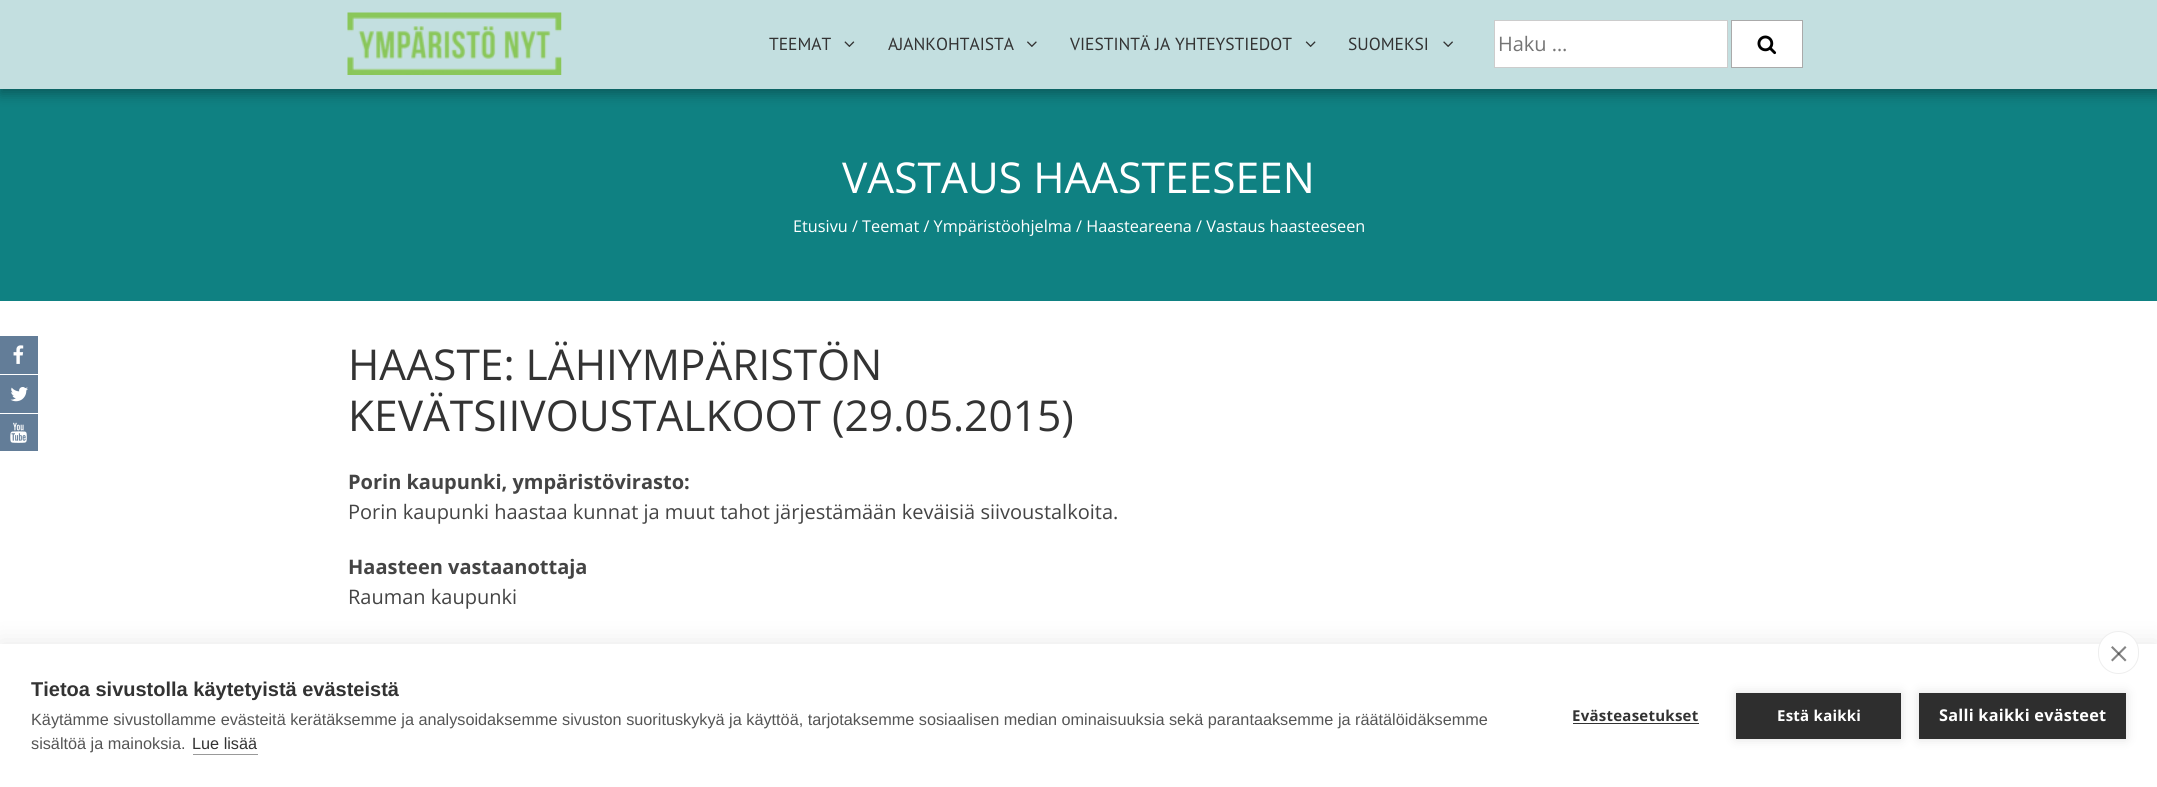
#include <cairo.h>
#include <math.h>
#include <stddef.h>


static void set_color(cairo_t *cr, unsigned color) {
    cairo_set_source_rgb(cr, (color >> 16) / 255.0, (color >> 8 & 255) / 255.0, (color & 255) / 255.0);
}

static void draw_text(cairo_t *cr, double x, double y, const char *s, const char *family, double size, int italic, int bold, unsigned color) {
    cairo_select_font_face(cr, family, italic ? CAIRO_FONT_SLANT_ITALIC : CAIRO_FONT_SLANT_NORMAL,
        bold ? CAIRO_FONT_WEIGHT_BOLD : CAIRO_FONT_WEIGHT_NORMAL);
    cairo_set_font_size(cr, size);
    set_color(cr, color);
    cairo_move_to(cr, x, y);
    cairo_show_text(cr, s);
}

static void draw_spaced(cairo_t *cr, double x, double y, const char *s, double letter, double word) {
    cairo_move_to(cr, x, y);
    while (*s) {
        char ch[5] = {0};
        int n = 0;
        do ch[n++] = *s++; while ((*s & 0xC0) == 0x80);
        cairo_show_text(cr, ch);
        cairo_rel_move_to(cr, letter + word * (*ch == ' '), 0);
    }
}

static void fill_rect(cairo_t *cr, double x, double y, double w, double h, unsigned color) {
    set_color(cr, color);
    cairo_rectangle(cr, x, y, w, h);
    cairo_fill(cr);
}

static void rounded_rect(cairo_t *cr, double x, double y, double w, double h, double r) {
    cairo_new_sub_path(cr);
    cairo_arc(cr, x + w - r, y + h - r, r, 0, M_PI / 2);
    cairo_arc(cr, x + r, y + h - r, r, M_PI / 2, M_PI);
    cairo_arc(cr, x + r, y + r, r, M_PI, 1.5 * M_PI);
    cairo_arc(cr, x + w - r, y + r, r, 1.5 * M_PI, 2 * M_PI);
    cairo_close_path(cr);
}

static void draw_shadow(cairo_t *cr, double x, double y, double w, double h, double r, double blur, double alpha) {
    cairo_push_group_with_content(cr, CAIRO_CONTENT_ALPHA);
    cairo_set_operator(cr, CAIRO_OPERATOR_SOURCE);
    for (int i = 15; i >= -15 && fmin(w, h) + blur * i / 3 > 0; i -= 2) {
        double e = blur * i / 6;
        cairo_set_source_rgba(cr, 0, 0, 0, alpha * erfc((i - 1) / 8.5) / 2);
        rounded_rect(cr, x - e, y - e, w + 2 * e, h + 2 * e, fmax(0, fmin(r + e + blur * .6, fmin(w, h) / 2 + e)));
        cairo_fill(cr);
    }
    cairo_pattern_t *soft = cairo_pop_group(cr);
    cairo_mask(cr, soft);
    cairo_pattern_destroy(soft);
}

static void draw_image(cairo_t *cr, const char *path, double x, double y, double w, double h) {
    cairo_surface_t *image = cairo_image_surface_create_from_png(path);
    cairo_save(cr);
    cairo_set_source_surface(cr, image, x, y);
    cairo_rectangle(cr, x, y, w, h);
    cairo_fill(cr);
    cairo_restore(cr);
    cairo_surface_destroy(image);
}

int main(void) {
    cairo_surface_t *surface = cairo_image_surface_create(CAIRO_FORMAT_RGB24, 2157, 787);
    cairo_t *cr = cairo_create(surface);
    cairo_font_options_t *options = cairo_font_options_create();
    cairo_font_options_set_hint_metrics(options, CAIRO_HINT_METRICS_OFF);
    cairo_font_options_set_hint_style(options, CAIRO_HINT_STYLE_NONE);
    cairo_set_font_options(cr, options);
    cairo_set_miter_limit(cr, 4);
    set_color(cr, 0xFFFFFF);
    cairo_paint(cr);
    fill_rect(cr, 0, 0, 2157, 301, 0x0F8182);
    cairo_save(cr);
    cairo_set_fill_rule(cr, CAIRO_FILL_RULE_EVEN_ODD);
    cairo_new_path(cr);
    cairo_move_to(cr, 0, 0);
    cairo_line_to(cr, 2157, 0);
    cairo_line_to(cr, 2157, 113);
    cairo_line_to(cr, 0, 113);
    cairo_close_path(cr);
    cairo_move_to(cr, 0, 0);
    cairo_line_to(cr, 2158, 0);
    cairo_line_to(cr, 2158, 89);
    cairo_line_to(cr, 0, 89);
    cairo_close_path(cr);
    cairo_clip(cr);
    set_color(cr, 0x000000);
    draw_shadow(cr, 0, 5, 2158, 89, 0, 6, 0.3);
    cairo_restore(cr);
    cairo_set_source_rgba(cr, 1, 1, 1, 0.75);
    cairo_rectangle(cr, 0, 0, 2157, 89);
    cairo_fill(cr);
    draw_image(cr, "assets/img1.png", 347, 12, 215, 63);
    draw_text(cr, 769, 50, "TEEMAT", "PT Sans", 17.5, 0, 0, 0x333333);
    draw_image(cr, "assets/img2.png", 844, 41, 11, 6);
    draw_text(cr, 888, 50, "AJANKOHTAISTA", "PT Sans", 17.5, 0, 0, 0x333333);
    draw_image(cr, "assets/img3.png", 1027, 41, 10, 6);
    draw_text(cr, 1070, 50, "VIESTINTÄ JA YHTEYSTIEDOT", "PT Sans", 17.5, 0, 0, 0x333333);
    draw_image(cr, "assets/img4.png", 1305, 41, 11, 6);
    draw_text(cr, 1348, 50, "SUOMEKSI", "PT Sans", 17.5, 0, 0, 0x333333);
    draw_image(cr, "assets/img5.png", 1443, 41, 10, 6);
    set_color(cr, 0xFFFFFF);
    cairo_rectangle(cr, 1494.5, 20.5, 233, 47);
    cairo_fill_preserve(cr);
    set_color(cr, 0xCCCCCC);
    cairo_set_line_width(cr, 1);
    cairo_stroke(cr);
    draw_text(cr, 1498, 51, "Haku …", "Open Sans", 20, 0, 0, 0x757575);
    set_color(cr, 0xFFFFFF);
    cairo_rectangle(cr, 1731.5, 20.5, 71, 47);
    cairo_fill_preserve(cr);
    set_color(cr, 0xAAAAAA);
    cairo_stroke(cr);
    draw_image(cr, "assets/img6.png", 1757, 35, 20, 20);
    fill_rect(cr, 0, 336, 38, 38, 0x637D98);
    draw_image(cr, "assets/img7.png", 13, 345, 11, 19);
    fill_rect(cr, 0, 375, 38, 38, 0x637D98);
    draw_image(cr, "assets/img8.png", 10, 387, 18, 15);
    fill_rect(cr, 0, 414, 38, 37, 0x637D98);
    draw_image(cr, "assets/img9.png", 10, 422, 17, 21);
    draw_text(cr, 842, 193, "VASTAUS HAASTEESEEN", "Open Sans", 42.5, 0, 0, 0xFFFFFF);
    draw_text(cr, 793, 232, "Etusivu / Teemat / Ympäristöohjelma / Haasteareena / Vastaus haasteeseen", "Open Sans", 16.25, 0, 0, 0xFFFFFF);
    draw_text(cr, 348, 380, "HAASTE: LÄHIYMPÄRISTÖN", "Open Sans", 42.5, 0, 0, 0x333333);
    draw_text(cr, 348, 431, "KEVÄTSIIVOUSTALKOOT (29.05.2015)", "Open Sans", 42.5, 0, 0, 0x333333);
    draw_text(cr, 348, 489, "Porin kaupunki, ympäristövirasto:", "Open Sans", 20, 0, 1, 0x444444);
    draw_text(cr, 348, 519, "Porin kaupunki haastaa kunnat ja muut tahot järjestämään keväisiä siivoustalkoita.", "Open Sans", 20, 0, 0, 0x444444);
    draw_text(cr, 348, 574, "Haasteen vastaanottaja", "Open Sans", 20, 0, 1, 0x444444);
    draw_text(cr, 348, 604, "Rauman kaupunki", "Open Sans", 20, 0, 0, 0x444444);
    set_color(cr, 0x000000);
    draw_shadow(cr, 0, 644, 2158, 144, 0, 12.5, 0.1);
    fill_rect(cr, 0, 644, 2157, 143, 0xFFFFFF);
    rounded_rect(cr, 2098.5, 631.5, 40, 42, 20);
    cairo_fill_preserve(cr);
    set_color(cr, 0xEEEEEE);
    cairo_stroke(cr);
    set_color(cr, 0x858585);
    cairo_new_path(cr);
    cairo_move_to(cr, 2111, 660);
    cairo_line_to(cr, 2125, 646);
    cairo_line_to(cr, 2126.5, 647.5);
    cairo_line_to(cr, 2112.5, 661.5);
    cairo_close_path(cr);
    cairo_fill(cr);
    cairo_set_source_rgba(cr, 0.2, 0.2, 0.2, 0.6);
    cairo_new_path(cr);
    cairo_move_to(cr, 2112.5, 646);
    cairo_line_to(cr, 2126.5, 660);
    cairo_line_to(cr, 2125, 661.5);
    cairo_line_to(cr, 2111, 647.5);
    cairo_close_path(cr);
    cairo_fill(cr);
    draw_text(cr, 31, 696, "Tietoa sivustolla käytetyistä evästeistä", "Liberation Sans", 20, 0, 1, 0x333333);
    draw_text(cr, 31, 725, "Käytämme sivustollamme evästeitä kerätäksemme ja analysoidaksemme sivuston suorituskykyä ja käyttöä, tarjotaksemme sosiaalisen median ominaisuuksia sekä parantaaksemme ja räätälöidäksemme", "Liberation Sans", 16.25, 0, 0, 0x555555);
    draw_text(cr, 31, 749, "sisältöä ja mainoksia.", "Liberation Sans", 16.25, 0, 0, 0x555555);
    draw_text(cr, 192, 749, "Lue lisää", "Liberation Sans", 16.25, 0, 0, 0x333333);
    fill_rect(cr, 193, 754, 65, 1, 0x999999);
    cairo_select_font_face(cr, "Open Sans", CAIRO_FONT_SLANT_NORMAL, CAIRO_FONT_WEIGHT_BOLD);
    cairo_set_font_size(cr, 15);
    set_color(cr, 0x333333);
    draw_spaced(cr, 1572, 721, "Evästeasetukset", 0.25, 0);
    fill_rect(cr, 1573, 723, 126, 1, 0x333333);
    set_color(cr, 0x000000);
    draw_shadow(cr, 1736, 693, 165, 46, 0, 6, 0.12);
    fill_rect(cr, 1736, 693, 165, 46, 0x2E2E2E);
    set_color(cr, 0xFFFFFF);
    draw_spaced(cr, 1777, 721, "Estä kaikki", 0.25, 0);
    set_color(cr, 0x000000);
    draw_shadow(cr, 1919, 693, 207, 46, 0, 6, 0.12);
    fill_rect(cr, 1919, 693, 207, 46, 0x2E2E2E);
    cairo_set_font_size(cr, 16.25);
    set_color(cr, 0xFFFFFF);
    draw_spaced(cr, 1939, 721, "Salli kaikki evästeet", 0.25, 0);
    cairo_surface_write_to_png(surface, "output.png");
    cairo_font_options_destroy(options);
    cairo_destroy(cr);
    cairo_surface_destroy(surface);
    return 0;
}
